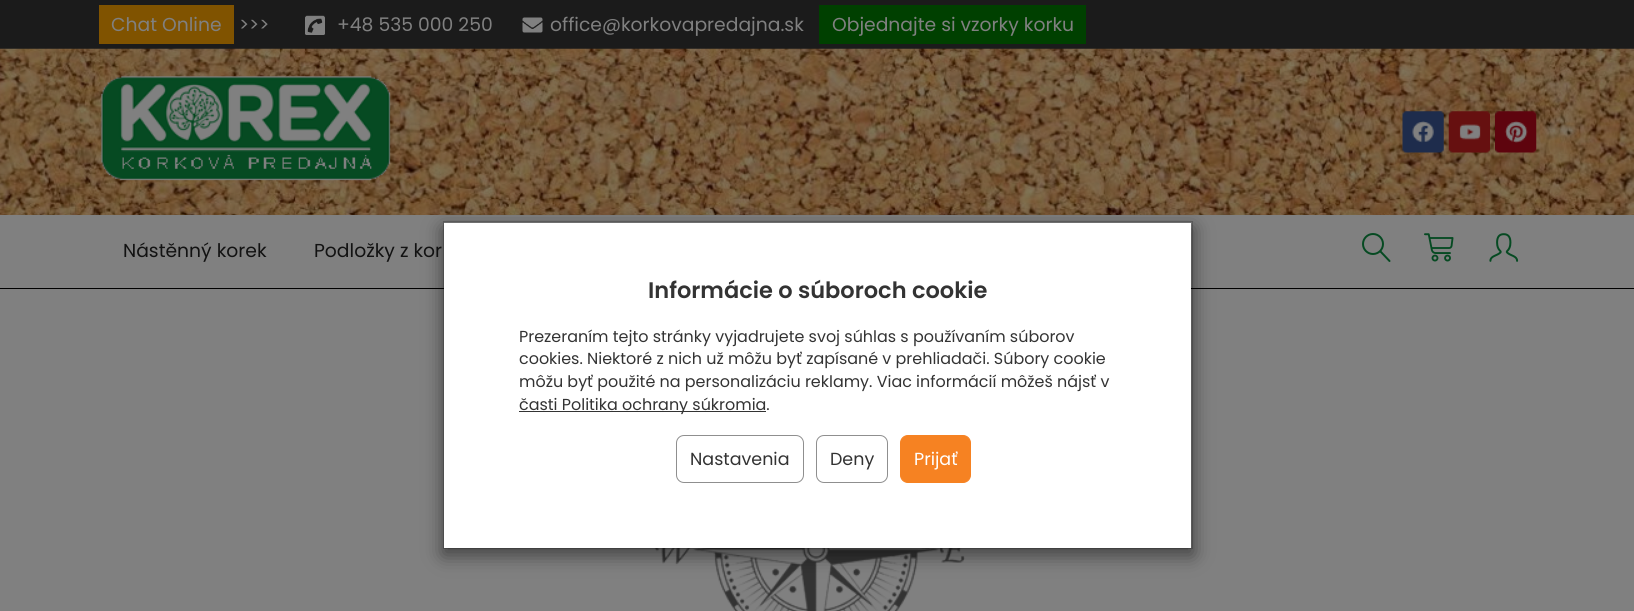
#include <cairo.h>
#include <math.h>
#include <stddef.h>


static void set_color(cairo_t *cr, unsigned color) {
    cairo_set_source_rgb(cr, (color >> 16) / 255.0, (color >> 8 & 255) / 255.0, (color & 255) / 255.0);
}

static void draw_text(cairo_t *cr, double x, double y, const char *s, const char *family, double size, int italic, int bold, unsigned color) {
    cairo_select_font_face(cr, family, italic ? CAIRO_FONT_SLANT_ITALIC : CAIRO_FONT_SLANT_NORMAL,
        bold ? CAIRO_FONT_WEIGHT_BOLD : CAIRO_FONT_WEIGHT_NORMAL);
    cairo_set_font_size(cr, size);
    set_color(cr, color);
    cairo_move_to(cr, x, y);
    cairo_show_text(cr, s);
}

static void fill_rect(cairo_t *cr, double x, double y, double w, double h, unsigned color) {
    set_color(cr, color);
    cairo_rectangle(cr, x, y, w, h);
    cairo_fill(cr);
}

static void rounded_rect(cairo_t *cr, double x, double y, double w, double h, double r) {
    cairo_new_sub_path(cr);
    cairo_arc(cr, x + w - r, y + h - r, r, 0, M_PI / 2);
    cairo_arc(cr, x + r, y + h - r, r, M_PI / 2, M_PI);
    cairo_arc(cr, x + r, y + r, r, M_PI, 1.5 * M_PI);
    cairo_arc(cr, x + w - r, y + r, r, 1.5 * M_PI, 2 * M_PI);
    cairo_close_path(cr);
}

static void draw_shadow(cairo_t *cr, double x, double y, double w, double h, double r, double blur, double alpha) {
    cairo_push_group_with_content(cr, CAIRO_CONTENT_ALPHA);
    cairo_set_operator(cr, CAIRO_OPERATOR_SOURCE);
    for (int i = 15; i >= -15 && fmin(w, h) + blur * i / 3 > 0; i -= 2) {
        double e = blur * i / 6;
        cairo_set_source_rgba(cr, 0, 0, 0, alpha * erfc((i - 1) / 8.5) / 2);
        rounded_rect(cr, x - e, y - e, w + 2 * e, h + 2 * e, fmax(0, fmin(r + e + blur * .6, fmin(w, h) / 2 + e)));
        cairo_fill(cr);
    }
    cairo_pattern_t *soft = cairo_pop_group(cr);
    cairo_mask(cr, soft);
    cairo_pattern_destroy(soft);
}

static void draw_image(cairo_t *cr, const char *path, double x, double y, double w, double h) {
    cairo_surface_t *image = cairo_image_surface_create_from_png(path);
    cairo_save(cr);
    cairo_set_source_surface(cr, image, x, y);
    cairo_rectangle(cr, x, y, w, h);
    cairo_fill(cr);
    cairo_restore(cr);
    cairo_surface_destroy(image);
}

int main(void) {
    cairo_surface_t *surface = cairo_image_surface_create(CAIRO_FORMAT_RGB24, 1634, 611);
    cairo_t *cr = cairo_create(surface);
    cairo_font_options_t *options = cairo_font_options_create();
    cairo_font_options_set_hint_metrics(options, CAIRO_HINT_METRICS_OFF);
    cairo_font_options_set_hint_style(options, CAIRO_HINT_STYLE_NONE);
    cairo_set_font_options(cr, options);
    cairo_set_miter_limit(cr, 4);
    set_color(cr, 0x808080);
    cairo_paint(cr);
    fill_rect(cr, 0, 0, 1634, 49, 0x1B1B1B);
    fill_rect(cr, 99, 5, 135, 39, 0x805300);
    draw_text(cr, 111, 31, "Chat Online", "Poppins", 18.75, 0, 0, 0x808080);
    draw_text(cr, 239, 31, ">>>", "Poppins", 18.75, 0, 0, 0x808080);
    draw_image(cr, "assets/img1.png", 305, 15, 20, 20);
    draw_text(cr, 337, 31, "+48 535 000 250", "Poppins", 18.75, 0, 0, 0x808080);
    draw_image(cr, "assets/img2.png", 522, 17, 21, 16);
    draw_text(cr, 550, 31, "office@korkovapredajna.sk", "Poppins", 18.75, 0, 0, 0x808080);
    fill_rect(cr, 819, 5, 267, 39, 0x004000);
    draw_text(cr, 832, 31, "Objednajte si vzorky korku", "Poppins", 18.75, 0, 0, 0x808080);
    draw_image(cr, "assets/img3.png", 0, 48, 1634, 167);
    draw_image(cr, "assets/img4.png", 101, 76, 290, 105);
    draw_image(cr, "assets/img5.png", 1402, 111, 42, 42);
    draw_image(cr, "assets/img6.png", 1448, 111, 42, 42);
    draw_image(cr, "assets/img7.png", 1495, 111, 42, 42);
    fill_rect(cr, 0, 288, 1634, 1, 0x000000);
    draw_text(cr, 123, 257, "Nástěnný korek", "Poppins", 18.75, 0, 0, 0x121212);
    draw_text(cr, 314, 257, "Podložky z kor", "Poppins", 18.75, 0, 0, 0x121212);
    cairo_new_path(cr);
    cairo_move_to(cr, 1380.5, 251.5);
    cairo_line_to(cr, 1389.5, 261);
    set_color(cr, 0x064A22);
    cairo_set_line_cap(cr, CAIRO_LINE_CAP_ROUND);
    cairo_set_line_join(cr, CAIRO_LINE_JOIN_ROUND);
    cairo_stroke(cr);
    cairo_arc(cr, 1373, 244, 10, 0, 2 * M_PI);
    cairo_set_line_cap(cr, CAIRO_LINE_CAP_BUTT);
    cairo_set_line_join(cr, CAIRO_LINE_JOIN_MITER);
    cairo_stroke(cr);
    draw_image(cr, "assets/img8.png", 1424, 233, 30, 29);
    draw_image(cr, "assets/img9.png", 1489, 233, 30, 29);
    draw_image(cr, "assets/img10.png", 654, 548, 312, 63);
    set_color(cr, 0x000000);
    draw_shadow(cr, 443, 228, 750, 327, 0, 9.5, 0.5);
    fill_rect(cr, 444, 223, 747, 325, 0xFFFFFF);
    cairo_rectangle(cr, 443.5, 221.5, 749, 327);
    cairo_set_source_rgba(cr, 0, 0, 0, 0.2);
    cairo_set_line_width(cr, 1);
    cairo_stroke(cr);
    draw_text(cr, 648, 298, "Informácie o súboroch cookie", "Poppins SemiBold", 22.5, 0, 0, 0x333333);
    draw_text(cr, 519, 342, "Prezeraním tejto stránky vyjadrujete svoj súhlas s používaním súborov", "Poppins", 15.95, 0, 0, 0x333333);
    draw_text(cr, 519, 364, "cookies. Niektoré z nich už môžu byť zapísané v prehliadači. Súbory cookie", "Poppins", 15.95, 0, 0, 0x333333);
    draw_text(cr, 519, 387, "môžu byť použité na personalizáciu reklamy. Viac informácií môžeš nájsť v", "Poppins", 15.95, 0, 0, 0x333333);
    fill_rect(cr, 519, 411, 247, 1, 0x333333);
    draw_text(cr, 519, 410, "časti Politika ochrany súkromia.", "Poppins", 15.95, 0, 0, 0x333333);
    rounded_rect(cr, 676.5, 435.5, 127, 47, 7.5);
    set_color(cr, 0x8F8F8F);
    cairo_stroke(cr);
    draw_text(cr, 690, 465, "Nastavenia", "Poppins", 17.5, 0, 0, 0x333333);
    rounded_rect(cr, 816.5, 435.5, 71, 47, 7.5);
    set_color(cr, 0x8F8F8F);
    cairo_stroke(cr);
    draw_text(cr, 830, 465, "Deny", "Poppins", 17.5, 0, 0, 0x333333);
    set_color(cr, 0xF68222);
    rounded_rect(cr, 900.5, 435.5, 70, 47, 7.5);
    cairo_fill_preserve(cr);
    cairo_stroke(cr);
    draw_text(cr, 914, 465, "Prijať", "Poppins", 17.5, 0, 0, 0xFFFFFF);
    cairo_surface_write_to_png(surface, "output.png");
    cairo_font_options_destroy(options);
    cairo_destroy(cr);
    cairo_surface_destroy(surface);
    return 0;
}
